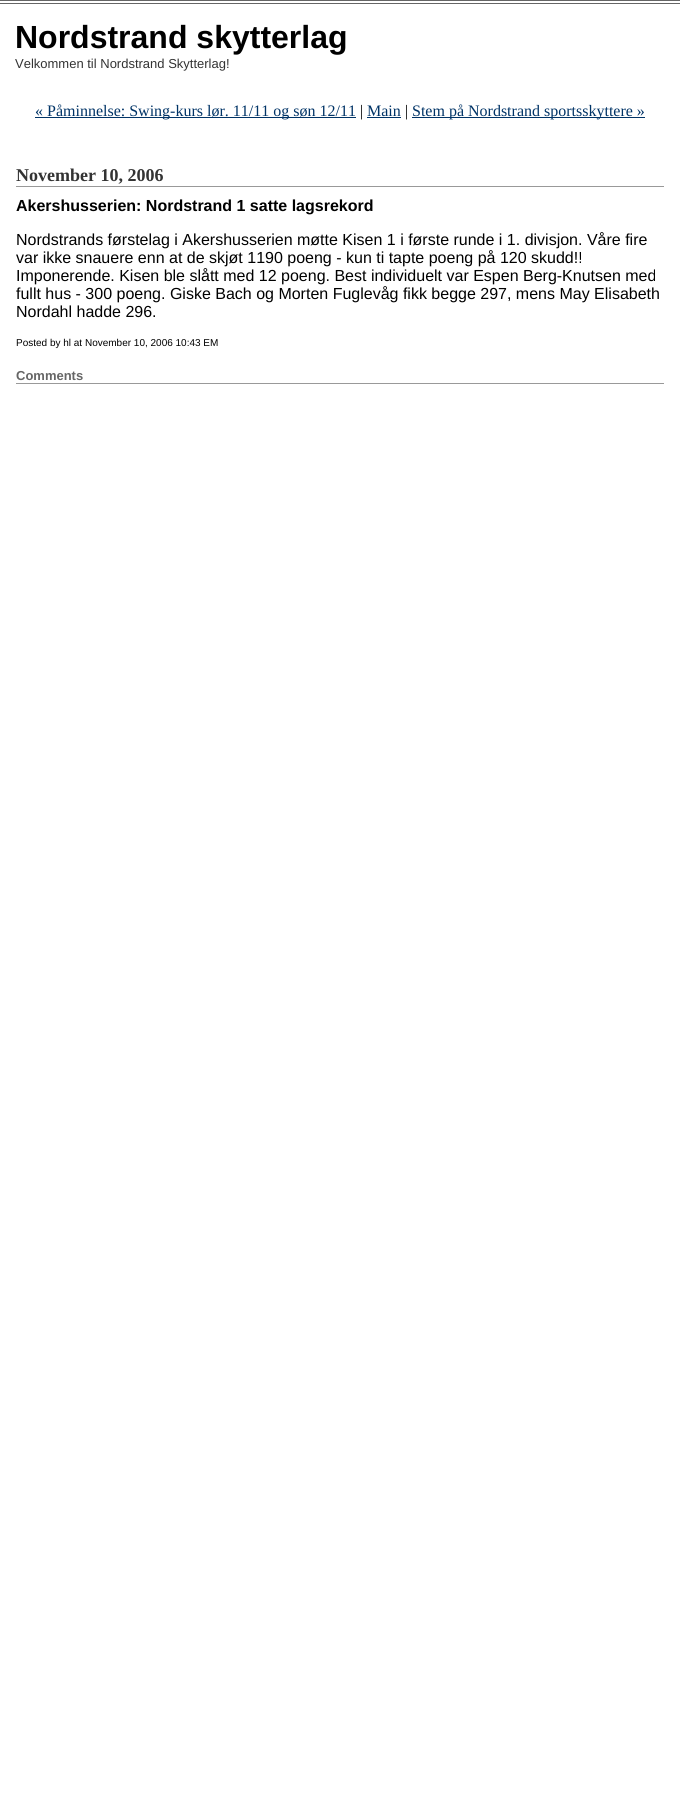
#include <cairo.h>
#include <math.h>
#include <stddef.h>


static void set_color(cairo_t *cr, unsigned color) {
    cairo_set_source_rgb(cr, (color >> 16) / 255.0, (color >> 8 & 255) / 255.0, (color & 255) / 255.0);
}

static void draw_text(cairo_t *cr, double x, double y, const char *s, const char *family, double size, int italic, int bold, unsigned color) {
    cairo_select_font_face(cr, family, italic ? CAIRO_FONT_SLANT_ITALIC : CAIRO_FONT_SLANT_NORMAL,
        bold ? CAIRO_FONT_WEIGHT_BOLD : CAIRO_FONT_WEIGHT_NORMAL);
    cairo_set_font_size(cr, size);
    set_color(cr, color);
    cairo_move_to(cr, x, y);
    cairo_show_text(cr, s);
}

static void fill_rect(cairo_t *cr, double x, double y, double w, double h, unsigned color) {
    set_color(cr, color);
    cairo_rectangle(cr, x, y, w, h);
    cairo_fill(cr);
}

int main(void) {
    cairo_surface_t *surface = cairo_image_surface_create(CAIRO_FORMAT_RGB24, 680, 1810);
    cairo_t *cr = cairo_create(surface);
    cairo_font_options_t *options = cairo_font_options_create();
    cairo_font_options_set_hint_metrics(options, CAIRO_HINT_METRICS_OFF);
    cairo_font_options_set_hint_style(options, CAIRO_HINT_STYLE_NONE);
    cairo_set_font_options(cr, options);
    cairo_set_miter_limit(cr, 4);
    set_color(cr, 0xFFFFFF);
    cairo_paint(cr);
    fill_rect(cr, 0, 0, 680, 1, 0x666666);
    fill_rect(cr, 0, 3, 680, 1, 0x666666);
    draw_text(cr, 15, 48, "Nordstrand skytterlag", "Liberation Sans", 32, 0, 1, 0x000000);
    draw_text(cr, 15, 68, "Velkommen til Nordstrand Skytterlag!", "Liberation Sans", 13, 0, 0, 0x333333);
    fill_rect(cr, 35, 117, 321, 1, 0x003366);
    draw_text(cr, 35, 116, "« Påminnelse: Swing-kurs lør. 11/11 og søn 12/11", "Liberation Serif", 16, 0, 0, 0x003366);
    draw_text(cr, 360, 116, "|", "Liberation Serif", 16, 0, 0, 0x000000);
    draw_text(cr, 367, 116, "Main", "Liberation Serif", 16, 0, 0, 0x003366);
    fill_rect(cr, 367, 117, 34, 1, 0x003366);
    draw_text(cr, 405, 116, "|", "Liberation Serif", 16, 0, 0, 0x000000);
    fill_rect(cr, 412, 117, 233, 1, 0x003366);
    draw_text(cr, 412, 116, "Stem på Nordstrand sportsskyttere »", "Liberation Serif", 16, 0, 0, 0x003366);
    fill_rect(cr, 16, 186, 648, 1, 0x999999);
    draw_text(cr, 16, 181, "November 10, 2006", "Liberation Serif", 18, 0, 1, 0x333333);
    draw_text(cr, 16, 211, "Akershusserien: Nordstrand 1 satte lagsrekord", "Liberation Sans", 16, 0, 1, 0x000000);
    draw_text(cr, 16, 245, "Nordstrands førstelag i Akershusserien møtte Kisen 1 i første runde i 1. divisjon. Våre fire", "Liberation Sans", 16, 0, 0, 0x000000);
    draw_text(cr, 16, 263, "var ikke snauere enn at de skjøt 1190 poeng - kun ti tapte poeng på 120 skudd!!", "Liberation Sans", 16, 0, 0, 0x000000);
    draw_text(cr, 16, 281, "Imponerende. Kisen ble slått med 12 poeng. Best individuelt var Espen Berg-Knutsen med", "Liberation Sans", 16, 0, 0, 0x000000);
    draw_text(cr, 16, 299, "fullt hus - 300 poeng. Giske Bach og Morten Fuglevåg fikk begge 297, mens May Elisabeth", "Liberation Sans", 16, 0, 0, 0x000000);
    draw_text(cr, 16, 317, "Nordahl hadde 296.", "Liberation Sans", 16, 0, 0, 0x000000);
    draw_text(cr, 16, 346, "Posted by hl at November 10, 2006 10:43 EM", "Liberation Sans", 10, 0, 0, 0x000000);
    fill_rect(cr, 16, 383, 648, 1, 0x999999);
    draw_text(cr, 16, 380, "Comments", "Liberation Sans", 13, 0, 1, 0x666666);
    cairo_surface_write_to_png(surface, "output.png");
    cairo_font_options_destroy(options);
    cairo_destroy(cr);
    cairo_surface_destroy(surface);
    return 0;
}
